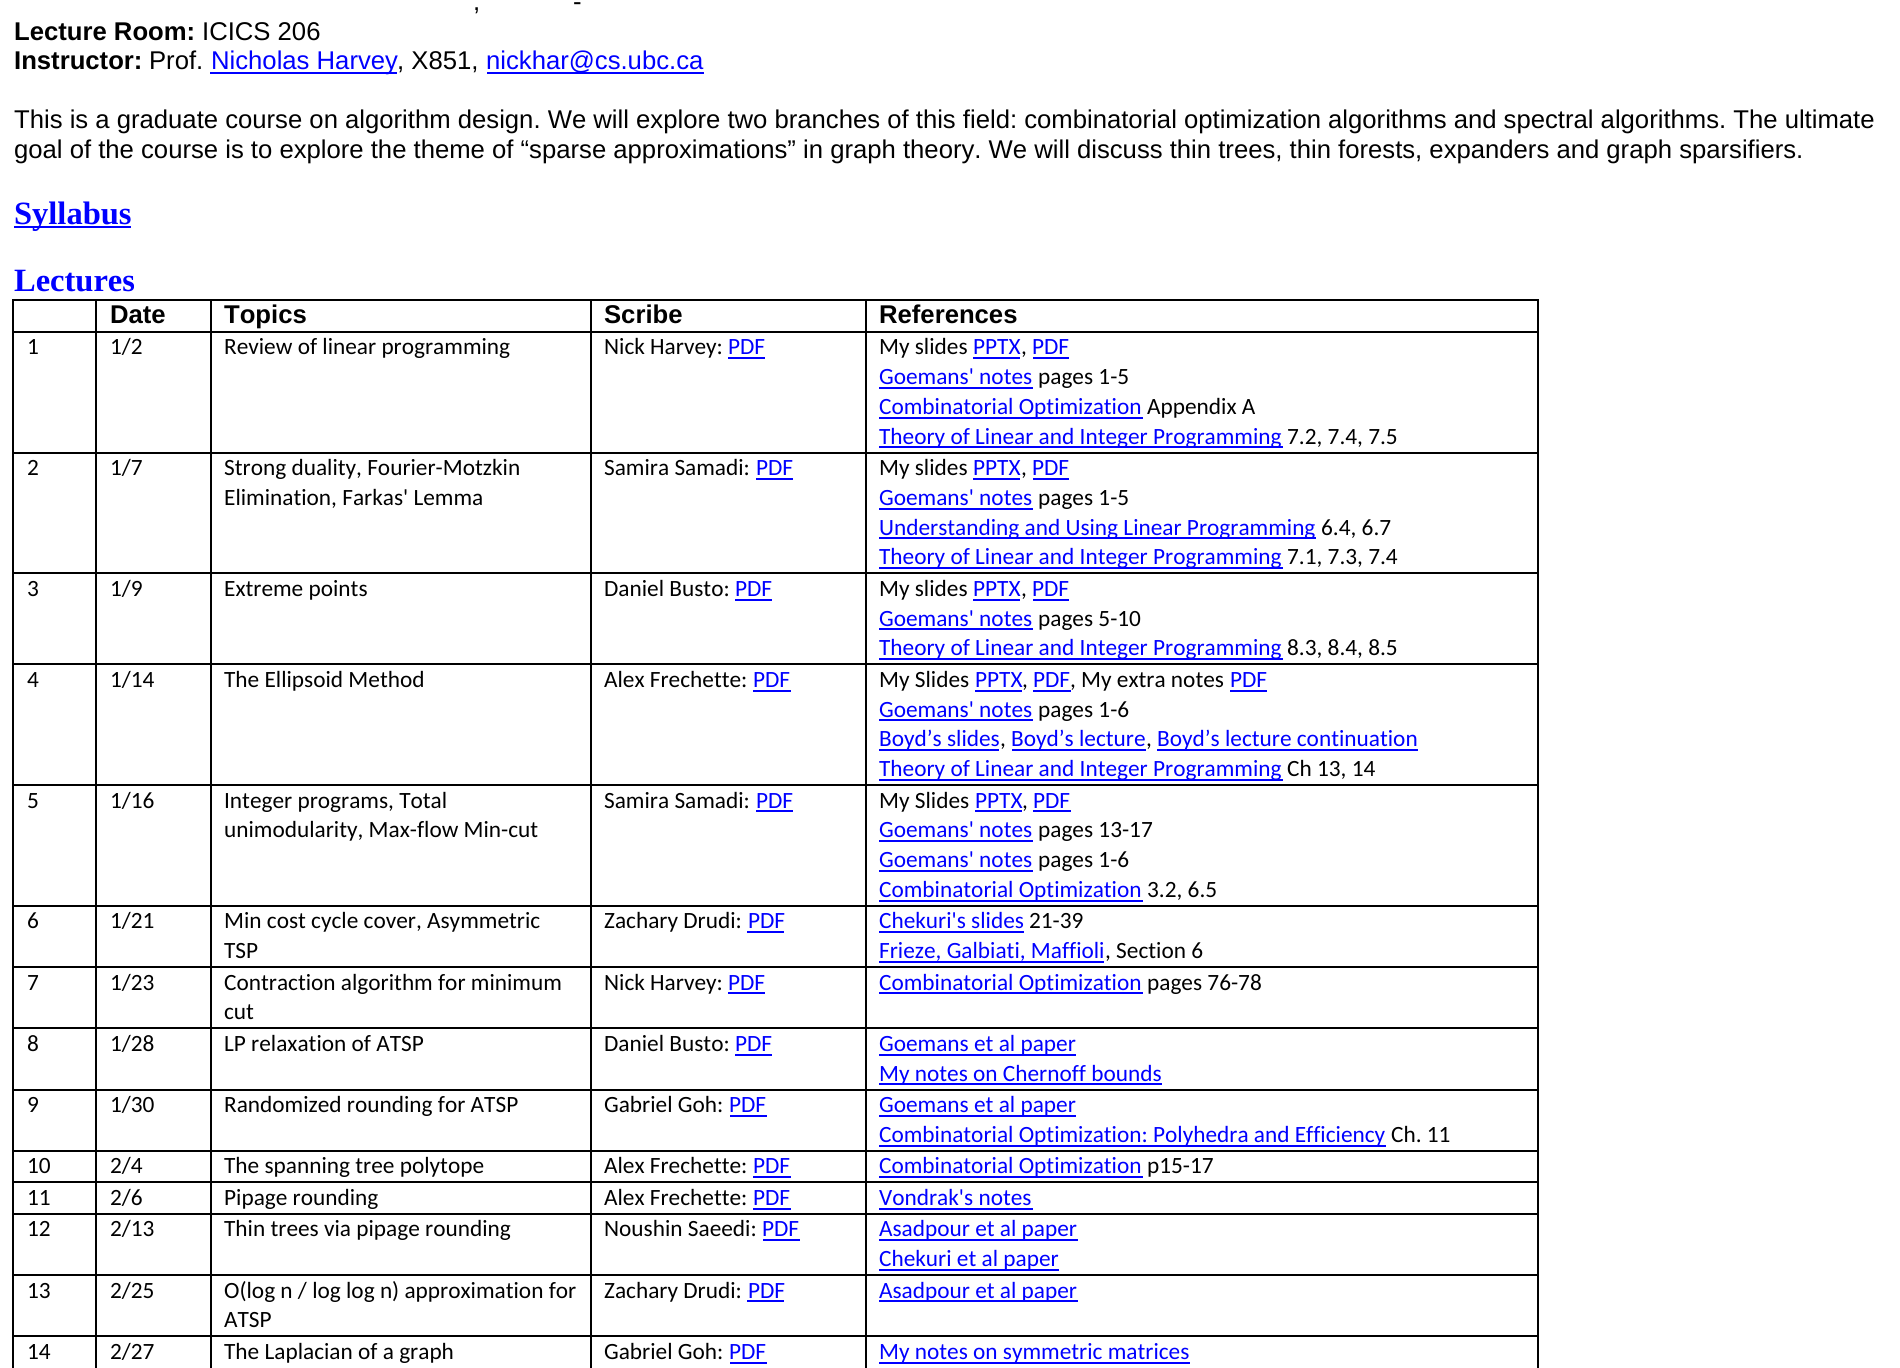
#include <cairo.h>
#include <math.h>
#include <stddef.h>


static void set_color(cairo_t *cr, unsigned color) {
    cairo_set_source_rgb(cr, (color >> 16) / 255.0, (color >> 8 & 255) / 255.0, (color & 255) / 255.0);
}

static void draw_text(cairo_t *cr, double x, double y, const char *s, const char *family, double size, int italic, int bold, unsigned color) {
    cairo_select_font_face(cr, family, italic ? CAIRO_FONT_SLANT_ITALIC : CAIRO_FONT_SLANT_NORMAL,
        bold ? CAIRO_FONT_WEIGHT_BOLD : CAIRO_FONT_WEIGHT_NORMAL);
    cairo_set_font_size(cr, size);
    set_color(cr, color);
    cairo_move_to(cr, x, y);
    cairo_show_text(cr, s);
}

static void fill_rect(cairo_t *cr, double x, double y, double w, double h, unsigned color) {
    set_color(cr, color);
    cairo_rectangle(cr, x, y, w, h);
    cairo_fill(cr);
}

int main(void) {
    cairo_surface_t *surface = cairo_image_surface_create(CAIRO_FORMAT_RGB24, 1900, 1368);
    cairo_t *cr = cairo_create(surface);
    cairo_font_options_t *options = cairo_font_options_create();
    cairo_font_options_set_hint_metrics(options, CAIRO_HINT_METRICS_OFF);
    cairo_font_options_set_hint_style(options, CAIRO_HINT_STYLE_NONE);
    cairo_set_font_options(cr, options);
    cairo_set_miter_limit(cr, 4);
    set_color(cr, 0xFFFFFF);
    cairo_paint(cr);
    draw_text(cr, 573, 10, "-", "Liberation Sans", 25.67, 0, 0, 0x000000);
    draw_text(cr, 473, 10, ",", "Liberation Sans", 25.67, 0, 0, 0x000000);
    draw_text(cr, 14, 40, "Lecture Room:", "Liberation Sans", 25.67, 0, 1, 0x000000);
    draw_text(cr, 202, 40, "ICICS 206", "Liberation Sans", 25.67, 0, 0, 0x000000);
    draw_text(cr, 14, 69, "Instructor:", "Liberation Sans", 25.67, 0, 1, 0x000000);
    draw_text(cr, 149, 69, "Prof.", "Liberation Sans", 25.67, 0, 0, 0x000000);
    fill_rect(cr, 210, 72, 187, 2, 0x0000FF);
    draw_text(cr, 211, 69, "Nicholas Harvey", "Liberation Sans", 25.67, 0, 0, 0x0000FF);
    draw_text(cr, 397, 69, ", X851,", "Liberation Sans", 25.67, 0, 0, 0x000000);
    fill_rect(cr, 487, 72, 217, 2, 0x0000FF);
    draw_text(cr, 486, 69, "nickhar@cs.ubc.ca", "Liberation Sans", 25.67, 0, 0, 0x0000FF);
    draw_text(cr, 14, 128, "This is a graduate course on algorithm design. We will explore two branches of this field: combinatorial optimization algorithms and spectral algorithms. The ultimate", "Liberation Sans", 25.67, 0, 0, 0x000000);
    draw_text(cr, 14, 158, "goal of the course is to explore the theme of “sparse approximations” in graph theory. We will discuss thin trees, thin forests, expanders and graph sparsifiers.", "Liberation Sans", 25.67, 0, 0, 0x000000);
    fill_rect(cr, 14, 226, 117, 2, 0x0000FF);
    draw_text(cr, 14, 224, "Syllabus", "Liberation Serif", 32.5, 0, 1, 0x0000FF);
    draw_text(cr, 14, 291, "Lectures", "Liberation Serif", 32.5, 0, 1, 0x0000FF);
    fill_rect(cr, 12, 299, 1526, 2, 0x000000);
    fill_rect(cr, 1537, 331, 2, 1037, 0x000000);
    fill_rect(cr, 1537, 299, 2, 34, 0x000000);
    fill_rect(cr, 865, 1335, 2, 33, 0x000000);
    fill_rect(cr, 865, 1335, 673, 2, 0x000000);
    fill_rect(cr, 865, 1274, 2, 63, 0x000000);
    fill_rect(cr, 865, 1274, 673, 2, 0x000000);
    fill_rect(cr, 865, 1213, 2, 63, 0x000000);
    fill_rect(cr, 865, 1213, 673, 2, 0x000000);
    fill_rect(cr, 865, 1181, 2, 34, 0x000000);
    fill_rect(cr, 865, 1181, 673, 2, 0x000000);
    fill_rect(cr, 865, 1150, 2, 33, 0x000000);
    fill_rect(cr, 865, 1150, 673, 2, 0x000000);
    fill_rect(cr, 865, 1089, 2, 63, 0x000000);
    fill_rect(cr, 865, 1089, 673, 2, 0x000000);
    fill_rect(cr, 865, 1027, 2, 63, 0x000000);
    fill_rect(cr, 865, 1027, 673, 2, 0x000000);
    fill_rect(cr, 865, 966, 2, 63, 0x000000);
    fill_rect(cr, 865, 966, 673, 2, 0x000000);
    fill_rect(cr, 865, 905, 2, 63, 0x000000);
    fill_rect(cr, 865, 905, 673, 2, 0x000000);
    fill_rect(cr, 865, 784, 2, 123, 0x000000);
    fill_rect(cr, 865, 784, 673, 2, 0x000000);
    fill_rect(cr, 865, 663, 2, 123, 0x000000);
    fill_rect(cr, 865, 663, 673, 2, 0x000000);
    fill_rect(cr, 865, 572, 2, 93, 0x000000);
    fill_rect(cr, 865, 572, 673, 2, 0x000000);
    fill_rect(cr, 865, 452, 2, 122, 0x000000);
    fill_rect(cr, 865, 452, 673, 2, 0x000000);
    fill_rect(cr, 865, 331, 2, 122, 0x000000);
    fill_rect(cr, 865, 331, 673, 2, 0x000000);
    fill_rect(cr, 865, 299, 2, 34, 0x000000);
    fill_rect(cr, 590, 1335, 2, 33, 0x000000);
    fill_rect(cr, 590, 1335, 276, 2, 0x000000);
    fill_rect(cr, 590, 1274, 2, 63, 0x000000);
    fill_rect(cr, 590, 1274, 276, 2, 0x000000);
    fill_rect(cr, 590, 1213, 2, 63, 0x000000);
    fill_rect(cr, 590, 1213, 276, 2, 0x000000);
    fill_rect(cr, 590, 1181, 2, 34, 0x000000);
    fill_rect(cr, 590, 1181, 276, 2, 0x000000);
    fill_rect(cr, 590, 1150, 2, 33, 0x000000);
    fill_rect(cr, 590, 1150, 276, 2, 0x000000);
    fill_rect(cr, 590, 1089, 2, 63, 0x000000);
    fill_rect(cr, 590, 1089, 276, 2, 0x000000);
    fill_rect(cr, 590, 1027, 2, 63, 0x000000);
    fill_rect(cr, 590, 1027, 276, 2, 0x000000);
    fill_rect(cr, 590, 966, 2, 63, 0x000000);
    fill_rect(cr, 590, 966, 276, 2, 0x000000);
    fill_rect(cr, 590, 905, 2, 63, 0x000000);
    fill_rect(cr, 590, 905, 276, 2, 0x000000);
    fill_rect(cr, 590, 784, 2, 123, 0x000000);
    fill_rect(cr, 590, 784, 276, 2, 0x000000);
    fill_rect(cr, 590, 663, 2, 123, 0x000000);
    fill_rect(cr, 590, 663, 276, 2, 0x000000);
    fill_rect(cr, 590, 572, 2, 93, 0x000000);
    fill_rect(cr, 590, 572, 276, 2, 0x000000);
    fill_rect(cr, 590, 452, 2, 122, 0x000000);
    fill_rect(cr, 590, 452, 276, 2, 0x000000);
    fill_rect(cr, 590, 331, 2, 122, 0x000000);
    fill_rect(cr, 590, 331, 276, 2, 0x000000);
    fill_rect(cr, 590, 299, 2, 34, 0x000000);
    fill_rect(cr, 210, 1335, 2, 33, 0x000000);
    fill_rect(cr, 210, 1335, 382, 2, 0x000000);
    fill_rect(cr, 210, 1274, 2, 63, 0x000000);
    fill_rect(cr, 210, 1274, 382, 2, 0x000000);
    fill_rect(cr, 210, 1213, 2, 63, 0x000000);
    fill_rect(cr, 210, 1213, 382, 2, 0x000000);
    fill_rect(cr, 210, 1181, 2, 34, 0x000000);
    fill_rect(cr, 210, 1181, 382, 2, 0x000000);
    fill_rect(cr, 210, 1150, 2, 33, 0x000000);
    fill_rect(cr, 210, 1150, 382, 2, 0x000000);
    fill_rect(cr, 210, 1089, 2, 63, 0x000000);
    fill_rect(cr, 210, 1089, 382, 2, 0x000000);
    fill_rect(cr, 210, 1027, 2, 63, 0x000000);
    fill_rect(cr, 210, 1027, 382, 2, 0x000000);
    fill_rect(cr, 210, 966, 2, 63, 0x000000);
    fill_rect(cr, 210, 966, 382, 2, 0x000000);
    fill_rect(cr, 210, 905, 2, 63, 0x000000);
    fill_rect(cr, 210, 905, 382, 2, 0x000000);
    fill_rect(cr, 210, 784, 2, 123, 0x000000);
    fill_rect(cr, 210, 784, 382, 2, 0x000000);
    fill_rect(cr, 210, 663, 2, 123, 0x000000);
    fill_rect(cr, 210, 663, 382, 2, 0x000000);
    fill_rect(cr, 210, 572, 2, 93, 0x000000);
    fill_rect(cr, 210, 572, 382, 2, 0x000000);
    fill_rect(cr, 210, 452, 2, 122, 0x000000);
    fill_rect(cr, 210, 452, 382, 2, 0x000000);
    fill_rect(cr, 210, 331, 2, 122, 0x000000);
    fill_rect(cr, 210, 331, 382, 2, 0x000000);
    fill_rect(cr, 210, 299, 2, 34, 0x000000);
    fill_rect(cr, 95, 1335, 2, 33, 0x000000);
    fill_rect(cr, 95, 1335, 117, 2, 0x000000);
    fill_rect(cr, 95, 1274, 2, 63, 0x000000);
    fill_rect(cr, 95, 1274, 117, 2, 0x000000);
    fill_rect(cr, 95, 1213, 2, 63, 0x000000);
    fill_rect(cr, 95, 1213, 117, 2, 0x000000);
    fill_rect(cr, 95, 1181, 2, 34, 0x000000);
    fill_rect(cr, 95, 1181, 117, 2, 0x000000);
    fill_rect(cr, 95, 1150, 2, 33, 0x000000);
    fill_rect(cr, 95, 1150, 117, 2, 0x000000);
    fill_rect(cr, 95, 1089, 2, 63, 0x000000);
    fill_rect(cr, 95, 1089, 117, 2, 0x000000);
    fill_rect(cr, 95, 1027, 2, 63, 0x000000);
    fill_rect(cr, 95, 1027, 117, 2, 0x000000);
    fill_rect(cr, 95, 966, 2, 63, 0x000000);
    fill_rect(cr, 95, 966, 117, 2, 0x000000);
    fill_rect(cr, 95, 905, 2, 63, 0x000000);
    fill_rect(cr, 95, 905, 117, 2, 0x000000);
    fill_rect(cr, 95, 784, 2, 123, 0x000000);
    fill_rect(cr, 95, 784, 117, 2, 0x000000);
    fill_rect(cr, 95, 663, 2, 123, 0x000000);
    fill_rect(cr, 95, 663, 117, 2, 0x000000);
    fill_rect(cr, 95, 572, 2, 93, 0x000000);
    fill_rect(cr, 95, 572, 117, 2, 0x000000);
    fill_rect(cr, 95, 452, 2, 122, 0x000000);
    fill_rect(cr, 95, 452, 117, 2, 0x000000);
    fill_rect(cr, 95, 331, 2, 122, 0x000000);
    fill_rect(cr, 95, 331, 117, 2, 0x000000);
    fill_rect(cr, 95, 299, 2, 34, 0x000000);
    fill_rect(cr, 12, 1335, 2, 33, 0x000000);
    fill_rect(cr, 12, 1335, 84, 2, 0x000000);
    fill_rect(cr, 12, 1274, 2, 63, 0x000000);
    fill_rect(cr, 12, 1274, 84, 2, 0x000000);
    fill_rect(cr, 12, 1213, 2, 63, 0x000000);
    fill_rect(cr, 12, 1213, 84, 2, 0x000000);
    fill_rect(cr, 12, 1181, 2, 34, 0x000000);
    fill_rect(cr, 12, 1181, 84, 2, 0x000000);
    fill_rect(cr, 12, 1150, 2, 33, 0x000000);
    fill_rect(cr, 12, 1150, 84, 2, 0x000000);
    fill_rect(cr, 12, 1089, 2, 63, 0x000000);
    fill_rect(cr, 12, 1089, 84, 2, 0x000000);
    fill_rect(cr, 12, 1027, 2, 63, 0x000000);
    fill_rect(cr, 12, 1027, 84, 2, 0x000000);
    fill_rect(cr, 12, 966, 2, 63, 0x000000);
    fill_rect(cr, 12, 966, 84, 2, 0x000000);
    fill_rect(cr, 12, 905, 2, 63, 0x000000);
    fill_rect(cr, 12, 905, 84, 2, 0x000000);
    fill_rect(cr, 12, 784, 2, 123, 0x000000);
    fill_rect(cr, 12, 784, 84, 2, 0x000000);
    fill_rect(cr, 12, 663, 2, 123, 0x000000);
    fill_rect(cr, 12, 663, 84, 2, 0x000000);
    fill_rect(cr, 12, 572, 2, 93, 0x000000);
    fill_rect(cr, 12, 572, 84, 2, 0x000000);
    fill_rect(cr, 12, 452, 2, 122, 0x000000);
    fill_rect(cr, 12, 452, 84, 2, 0x000000);
    fill_rect(cr, 12, 331, 2, 122, 0x000000);
    fill_rect(cr, 12, 331, 84, 2, 0x000000);
    fill_rect(cr, 12, 299, 2, 34, 0x000000);
    draw_text(cr, 110, 323, "Date", "Liberation Sans", 25.67, 0, 1, 0x000000);
    draw_text(cr, 224, 323, "Topics", "Liberation Sans", 25.67, 0, 1, 0x000000);
    draw_text(cr, 604, 323, "Scribe", "Liberation Sans", 25.67, 0, 1, 0x000000);
    draw_text(cr, 879, 323, "References", "Liberation Sans", 25.67, 0, 1, 0x000000);
    draw_text(cr, 27, 354, "1", "Carlito", 23.3, 0, 0, 0x000000);
    draw_text(cr, 110, 354, "1/2", "Carlito", 23.3, 0, 0, 0x000000);
    draw_text(cr, 224, 354, "Review of linear programming", "Carlito", 23.3, 0, 0, 0x000000);
    draw_text(cr, 604, 354, "Nick Harvey:", "Carlito", 23.3, 0, 0, 0x000000);
    draw_text(cr, 728, 354, "PDF", "Carlito", 23.3, 0, 0, 0x0000FF);
    fill_rect(cr, 728, 357, 37, 2, 0x0000FF);
    draw_text(cr, 879, 354, "My slides", "Carlito", 23.3, 0, 0, 0x000000);
    draw_text(cr, 973, 354, "PPTX", "Carlito", 23.3, 0, 0, 0x0000FF);
    draw_text(cr, 1021, 354, ",", "Carlito", 23.3, 0, 0, 0x000000);
    fill_rect(cr, 973, 357, 47, 2, 0x0000FF);
    fill_rect(cr, 1033, 357, 36, 2, 0x0000FF);
    draw_text(cr, 1032, 354, "PDF", "Carlito", 23.3, 0, 0, 0x0000FF);
    draw_text(cr, 879, 384, "Goemans' notes", "Carlito", 23.3, 0, 0, 0x0000FF);
    fill_rect(cr, 879, 387, 154, 2, 0x0000FF);
    draw_text(cr, 1038, 384, "pages 1-5", "Carlito", 23.3, 0, 0, 0x000000);
    fill_rect(cr, 879, 417, 264, 2, 0x0000FF);
    draw_text(cr, 879, 414, "Combinatorial Optimization", "Carlito", 23.3, 0, 0, 0x0000FF);
    draw_text(cr, 1147, 414, "Appendix A", "Carlito", 23.3, 0, 0, 0x000000);
    fill_rect(cr, 879, 446, 404, 2, 0x0000FF);
    draw_text(cr, 879, 444, "Theory of Linear and Integer Programming", "Carlito", 23.3, 0, 0, 0x0000FF);
    draw_text(cr, 1287, 444, "7.2, 7.4, 7.5", "Carlito", 23.3, 0, 0, 0x000000);
    draw_text(cr, 27, 475, "2", "Carlito", 23.3, 0, 0, 0x000000);
    draw_text(cr, 110, 475, "1/7", "Carlito", 23.3, 0, 0, 0x000000);
    draw_text(cr, 224, 475, "Strong duality, Fourier-Motzkin", "Carlito", 23.3, 0, 0, 0x000000);
    draw_text(cr, 224, 505, "Elimination, Farkas' Lemma", "Carlito", 23.3, 0, 0, 0x000000);
    draw_text(cr, 604, 475, "Samira Samadi:", "Carlito", 23.3, 0, 0, 0x000000);
    draw_text(cr, 756, 475, "PDF", "Carlito", 23.3, 0, 0, 0x0000FF);
    fill_rect(cr, 756, 478, 37, 2, 0x0000FF);
    draw_text(cr, 879, 475, "My slides", "Carlito", 23.3, 0, 0, 0x000000);
    draw_text(cr, 973, 475, "PPTX", "Carlito", 23.3, 0, 0, 0x0000FF);
    draw_text(cr, 1021, 475, ",", "Carlito", 23.3, 0, 0, 0x000000);
    fill_rect(cr, 973, 478, 47, 2, 0x0000FF);
    fill_rect(cr, 1033, 478, 36, 2, 0x0000FF);
    draw_text(cr, 1032, 475, "PDF", "Carlito", 23.3, 0, 0, 0x0000FF);
    draw_text(cr, 879, 505, "Goemans' notes", "Carlito", 23.3, 0, 0, 0x0000FF);
    fill_rect(cr, 879, 508, 154, 2, 0x0000FF);
    draw_text(cr, 1038, 505, "pages 1-5", "Carlito", 23.3, 0, 0, 0x000000);
    fill_rect(cr, 879, 537, 437, 2, 0x0000FF);
    draw_text(cr, 879, 535, "Understanding and Using Linear Programming", "Carlito", 23.3, 0, 0, 0x0000FF);
    draw_text(cr, 1321, 535, "6.4, 6.7", "Carlito", 23.3, 0, 0, 0x000000);
    fill_rect(cr, 879, 567, 404, 2, 0x0000FF);
    draw_text(cr, 879, 564, "Theory of Linear and Integer Programming", "Carlito", 23.3, 0, 0, 0x0000FF);
    draw_text(cr, 1287, 564, "7.1, 7.3, 7.4", "Carlito", 23.3, 0, 0, 0x000000);
    draw_text(cr, 27, 596, "3", "Carlito", 23.3, 0, 0, 0x000000);
    draw_text(cr, 110, 596, "1/9", "Carlito", 23.3, 0, 0, 0x000000);
    draw_text(cr, 224, 596, "Extreme points", "Carlito", 23.3, 0, 0, 0x000000);
    draw_text(cr, 604, 596, "Daniel Busto:", "Carlito", 23.3, 0, 0, 0x000000);
    draw_text(cr, 735, 596, "PDF", "Carlito", 23.3, 0, 0, 0x0000FF);
    fill_rect(cr, 735, 599, 37, 2, 0x0000FF);
    draw_text(cr, 879, 596, "My slides", "Carlito", 23.3, 0, 0, 0x000000);
    draw_text(cr, 973, 596, "PPTX", "Carlito", 23.3, 0, 0, 0x0000FF);
    draw_text(cr, 1021, 596, ",", "Carlito", 23.3, 0, 0, 0x000000);
    fill_rect(cr, 973, 599, 47, 2, 0x0000FF);
    fill_rect(cr, 1033, 599, 36, 2, 0x0000FF);
    draw_text(cr, 1032, 596, "PDF", "Carlito", 23.3, 0, 0, 0x0000FF);
    draw_text(cr, 879, 626, "Goemans' notes", "Carlito", 23.3, 0, 0, 0x0000FF);
    fill_rect(cr, 879, 628, 154, 2, 0x0000FF);
    draw_text(cr, 1038, 626, "pages 5-10", "Carlito", 23.3, 0, 0, 0x000000);
    fill_rect(cr, 879, 658, 404, 2, 0x0000FF);
    draw_text(cr, 879, 655, "Theory of Linear and Integer Programming", "Carlito", 23.3, 0, 0, 0x0000FF);
    draw_text(cr, 1287, 655, "8.3, 8.4, 8.5", "Carlito", 23.3, 0, 0, 0x000000);
    draw_text(cr, 27, 687, "4", "Carlito", 23.3, 0, 0, 0x000000);
    draw_text(cr, 110, 687, "1/14", "Carlito", 23.3, 0, 0, 0x000000);
    draw_text(cr, 224, 687, "The Ellipsoid Method", "Carlito", 23.3, 0, 0, 0x000000);
    draw_text(cr, 604, 687, "Alex Frechette:", "Carlito", 23.3, 0, 0, 0x000000);
    draw_text(cr, 753, 687, "PDF", "Carlito", 23.3, 0, 0, 0x0000FF);
    fill_rect(cr, 753, 690, 38, 2, 0x0000FF);
    draw_text(cr, 879, 687, "My Slides", "Carlito", 23.3, 0, 0, 0x000000);
    draw_text(cr, 975, 687, "PPTX", "Carlito", 23.3, 0, 0, 0x0000FF);
    draw_text(cr, 1022, 687, ",", "Carlito", 23.3, 0, 0, 0x000000);
    fill_rect(cr, 975, 690, 47, 2, 0x0000FF);
    fill_rect(cr, 1033, 690, 38, 2, 0x0000FF);
    draw_text(cr, 1033, 687, "PDF", "Carlito", 23.3, 0, 0, 0x0000FF);
    draw_text(cr, 1070, 687, ", My extra notes", "Carlito", 23.3, 0, 0, 0x000000);
    draw_text(cr, 1230, 687, "PDF", "Carlito", 23.3, 0, 0, 0x0000FF);
    fill_rect(cr, 1230, 690, 37, 2, 0x0000FF);
    draw_text(cr, 879, 717, "Goemans' notes", "Carlito", 23.3, 0, 0, 0x0000FF);
    fill_rect(cr, 879, 719, 154, 2, 0x0000FF);
    draw_text(cr, 1038, 717, "pages 1-6", "Carlito", 23.3, 0, 0, 0x000000);
    fill_rect(cr, 879, 749, 120, 2, 0x0000FF);
    draw_text(cr, 879, 746, "Boyd’s slides", "Carlito", 23.3, 0, 0, 0x0000FF);
    draw_text(cr, 1000, 746, ",", "Carlito", 23.3, 0, 0, 0x000000);
    fill_rect(cr, 1012, 749, 134, 2, 0x0000FF);
    draw_text(cr, 1011, 746, "Boyd’s lecture", "Carlito", 23.3, 0, 0, 0x0000FF);
    draw_text(cr, 1146, 746, ",", "Carlito", 23.3, 0, 0, 0x000000);
    fill_rect(cr, 1157, 749, 261, 2, 0x0000FF);
    draw_text(cr, 1157, 746, "Boyd’s lecture continuation", "Carlito", 23.3, 0, 0, 0x0000FF);
    fill_rect(cr, 879, 779, 404, 2, 0x0000FF);
    draw_text(cr, 879, 776, "Theory of Linear and Integer Programming", "Carlito", 23.3, 0, 0, 0x0000FF);
    draw_text(cr, 1287, 776, "Ch 13, 14", "Carlito", 23.3, 0, 0, 0x000000);
    draw_text(cr, 27, 808, "5", "Carlito", 23.3, 0, 0, 0x000000);
    draw_text(cr, 110, 808, "1/16", "Carlito", 23.3, 0, 0, 0x000000);
    draw_text(cr, 224, 808, "Integer programs, Total", "Carlito", 23.3, 0, 0, 0x000000);
    draw_text(cr, 224, 837, "unimodularity, Max-flow Min-cut", "Carlito", 23.3, 0, 0, 0x000000);
    draw_text(cr, 604, 808, "Samira Samadi:", "Carlito", 23.3, 0, 0, 0x000000);
    draw_text(cr, 756, 808, "PDF", "Carlito", 23.3, 0, 0, 0x0000FF);
    fill_rect(cr, 756, 810, 37, 2, 0x0000FF);
    draw_text(cr, 879, 808, "My Slides", "Carlito", 23.3, 0, 0, 0x000000);
    draw_text(cr, 975, 808, "PPTX", "Carlito", 23.3, 0, 0, 0x0000FF);
    draw_text(cr, 1022, 808, ",", "Carlito", 23.3, 0, 0, 0x000000);
    fill_rect(cr, 975, 810, 47, 2, 0x0000FF);
    fill_rect(cr, 1033, 810, 38, 2, 0x0000FF);
    draw_text(cr, 1033, 808, "PDF", "Carlito", 23.3, 0, 0, 0x0000FF);
    draw_text(cr, 879, 837, "Goemans' notes", "Carlito", 23.3, 0, 0, 0x0000FF);
    fill_rect(cr, 879, 840, 154, 2, 0x0000FF);
    draw_text(cr, 1038, 837, "pages 13-17", "Carlito", 23.3, 0, 0, 0x000000);
    draw_text(cr, 879, 867, "Goemans' notes", "Carlito", 23.3, 0, 0, 0x0000FF);
    fill_rect(cr, 879, 870, 154, 2, 0x0000FF);
    draw_text(cr, 1038, 867, "pages 1-6", "Carlito", 23.3, 0, 0, 0x000000);
    fill_rect(cr, 879, 900, 264, 2, 0x0000FF);
    draw_text(cr, 879, 897, "Combinatorial Optimization", "Carlito", 23.3, 0, 0, 0x0000FF);
    draw_text(cr, 1147, 897, "3.2, 6.5", "Carlito", 23.3, 0, 0, 0x000000);
    draw_text(cr, 27, 928, "6", "Carlito", 23.3, 0, 0, 0x000000);
    draw_text(cr, 110, 928, "1/21", "Carlito", 23.3, 0, 0, 0x000000);
    draw_text(cr, 224, 928, "Min cost cycle cover, Asymmetric", "Carlito", 23.3, 0, 0, 0x000000);
    draw_text(cr, 224, 958, "TSP", "Carlito", 23.3, 0, 0, 0x000000);
    draw_text(cr, 604, 928, "Zachary Drudi:", "Carlito", 23.3, 0, 0, 0x000000);
    draw_text(cr, 748, 928, "PDF", "Carlito", 23.3, 0, 0, 0x0000FF);
    fill_rect(cr, 747, 931, 37, 2, 0x0000FF);
    draw_text(cr, 879, 928, "Chekuri's slides", "Carlito", 23.3, 0, 0, 0x0000FF);
    fill_rect(cr, 879, 931, 145, 2, 0x0000FF);
    draw_text(cr, 1029, 928, "21-39", "Carlito", 23.3, 0, 0, 0x000000);
    draw_text(cr, 879, 958, "Frieze, Galbiati, Maffioli", "Carlito", 23.3, 0, 0, 0x0000FF);
    fill_rect(cr, 879, 961, 225, 2, 0x0000FF);
    draw_text(cr, 1105, 958, ", Section 6", "Carlito", 23.3, 0, 0, 0x000000);
    draw_text(cr, 27, 990, "7", "Carlito", 23.3, 0, 0, 0x000000);
    draw_text(cr, 110, 990, "1/23", "Carlito", 23.3, 0, 0, 0x000000);
    draw_text(cr, 224, 990, "Contraction algorithm for minimum", "Carlito", 23.3, 0, 0, 0x000000);
    draw_text(cr, 224, 1019, "cut", "Carlito", 23.3, 0, 0, 0x000000);
    draw_text(cr, 604, 990, "Nick Harvey:", "Carlito", 23.3, 0, 0, 0x000000);
    draw_text(cr, 728, 990, "PDF", "Carlito", 23.3, 0, 0, 0x0000FF);
    fill_rect(cr, 728, 992, 37, 2, 0x0000FF);
    fill_rect(cr, 879, 992, 264, 2, 0x0000FF);
    draw_text(cr, 879, 990, "Combinatorial Optimization", "Carlito", 23.3, 0, 0, 0x0000FF);
    draw_text(cr, 1147, 990, "pages 76-78", "Carlito", 23.3, 0, 0, 0x000000);
    draw_text(cr, 27, 1051, "8", "Carlito", 23.3, 0, 0, 0x000000);
    draw_text(cr, 110, 1051, "1/28", "Carlito", 23.3, 0, 0, 0x000000);
    draw_text(cr, 224, 1051, "LP relaxation of ATSP", "Carlito", 23.3, 0, 0, 0x000000);
    draw_text(cr, 604, 1051, "Daniel Busto:", "Carlito", 23.3, 0, 0, 0x000000);
    draw_text(cr, 735, 1051, "PDF", "Carlito", 23.3, 0, 0, 0x0000FF);
    fill_rect(cr, 735, 1054, 37, 2, 0x0000FF);
    fill_rect(cr, 879, 1054, 197, 2, 0x0000FF);
    draw_text(cr, 879, 1051, "Goemans et al paper", "Carlito", 23.3, 0, 0, 0x0000FF);
    fill_rect(cr, 879, 1083, 283, 2, 0x0000FF);
    draw_text(cr, 879, 1081, "My notes on Chernoff bounds", "Carlito", 23.3, 0, 0, 0x0000FF);
    draw_text(cr, 27, 1112, "9", "Carlito", 23.3, 0, 0, 0x000000);
    draw_text(cr, 110, 1112, "1/30", "Carlito", 23.3, 0, 0, 0x000000);
    draw_text(cr, 224, 1112, "Randomized rounding for ATSP", "Carlito", 23.3, 0, 0, 0x000000);
    draw_text(cr, 604, 1112, "Gabriel Goh:", "Carlito", 23.3, 0, 0, 0x000000);
    draw_text(cr, 729, 1112, "PDF", "Carlito", 23.3, 0, 0, 0x0000FF);
    fill_rect(cr, 730, 1115, 37, 2, 0x0000FF);
    fill_rect(cr, 879, 1115, 197, 2, 0x0000FF);
    draw_text(cr, 879, 1112, "Goemans et al paper", "Carlito", 23.3, 0, 0, 0x0000FF);
    fill_rect(cr, 879, 1145, 507, 2, 0x0000FF);
    draw_text(cr, 879, 1142, "Combinatorial Optimization: Polyhedra and Efficiency", "Carlito", 23.3, 0, 0, 0x0000FF);
    draw_text(cr, 1391, 1142, "Ch. 11", "Carlito", 23.3, 0, 0, 0x000000);
    draw_text(cr, 27, 1173, "10", "Carlito", 23.3, 0, 0, 0x000000);
    draw_text(cr, 110, 1173, "2/4", "Carlito", 23.3, 0, 0, 0x000000);
    draw_text(cr, 224, 1173, "The spanning tree polytope", "Carlito", 23.3, 0, 0, 0x000000);
    draw_text(cr, 604, 1173, "Alex Frechette:", "Carlito", 23.3, 0, 0, 0x000000);
    draw_text(cr, 753, 1173, "PDF", "Carlito", 23.3, 0, 0, 0x0000FF);
    fill_rect(cr, 753, 1176, 38, 2, 0x0000FF);
    fill_rect(cr, 879, 1176, 264, 2, 0x0000FF);
    draw_text(cr, 879, 1173, "Combinatorial Optimization", "Carlito", 23.3, 0, 0, 0x0000FF);
    draw_text(cr, 1147, 1173, "p15-17", "Carlito", 23.3, 0, 0, 0x000000);
    draw_text(cr, 27, 1205, "11", "Carlito", 23.3, 0, 0, 0x000000);
    draw_text(cr, 110, 1205, "2/6", "Carlito", 23.3, 0, 0, 0x000000);
    draw_text(cr, 224, 1205, "Pipage rounding", "Carlito", 23.3, 0, 0, 0x000000);
    draw_text(cr, 604, 1205, "Alex Frechette:", "Carlito", 23.3, 0, 0, 0x000000);
    draw_text(cr, 753, 1205, "PDF", "Carlito", 23.3, 0, 0, 0x0000FF);
    fill_rect(cr, 753, 1208, 38, 2, 0x0000FF);
    draw_text(cr, 879, 1205, "Vondrak's notes", "Carlito", 23.3, 0, 0, 0x0000FF);
    fill_rect(cr, 879, 1208, 154, 2, 0x0000FF);
    draw_text(cr, 27, 1236, "12", "Carlito", 23.3, 0, 0, 0x000000);
    draw_text(cr, 110, 1236, "2/13", "Carlito", 23.3, 0, 0, 0x000000);
    draw_text(cr, 224, 1236, "Thin trees via pipage rounding", "Carlito", 23.3, 0, 0, 0x000000);
    draw_text(cr, 604, 1236, "Noushin Saeedi:", "Carlito", 23.3, 0, 0, 0x000000);
    draw_text(cr, 762, 1236, "PDF", "Carlito", 23.3, 0, 0, 0x0000FF);
    fill_rect(cr, 763, 1239, 37, 2, 0x0000FF);
    fill_rect(cr, 879, 1239, 199, 2, 0x0000FF);
    draw_text(cr, 879, 1236, "Asadpour et al paper", "Carlito", 23.3, 0, 0, 0x0000FF);
    fill_rect(cr, 879, 1269, 180, 2, 0x0000FF);
    draw_text(cr, 879, 1266, "Chekuri et al paper", "Carlito", 23.3, 0, 0, 0x0000FF);
    draw_text(cr, 27, 1298, "13", "Carlito", 23.3, 0, 0, 0x000000);
    draw_text(cr, 110, 1298, "2/25", "Carlito", 23.3, 0, 0, 0x000000);
    draw_text(cr, 224, 1298, "O(log n / log log n) approximation for", "Carlito", 23.3, 0, 0, 0x000000);
    draw_text(cr, 224, 1327, "ATSP", "Carlito", 23.3, 0, 0, 0x000000);
    draw_text(cr, 604, 1298, "Zachary Drudi:", "Carlito", 23.3, 0, 0, 0x000000);
    draw_text(cr, 748, 1298, "PDF", "Carlito", 23.3, 0, 0, 0x0000FF);
    fill_rect(cr, 747, 1300, 37, 2, 0x0000FF);
    fill_rect(cr, 879, 1300, 199, 2, 0x0000FF);
    draw_text(cr, 879, 1298, "Asadpour et al paper", "Carlito", 23.3, 0, 0, 0x0000FF);
    draw_text(cr, 27, 1359, "14", "Carlito", 23.3, 0, 0, 0x000000);
    draw_text(cr, 110, 1359, "2/27", "Carlito", 23.3, 0, 0, 0x000000);
    draw_text(cr, 224, 1359, "The Laplacian of a graph", "Carlito", 23.3, 0, 0, 0x000000);
    draw_text(cr, 604, 1359, "Gabriel Goh:", "Carlito", 23.3, 0, 0, 0x000000);
    draw_text(cr, 729, 1359, "PDF", "Carlito", 23.3, 0, 0, 0x0000FF);
    fill_rect(cr, 730, 1362, 37, 2, 0x0000FF);
    fill_rect(cr, 879, 1362, 311, 2, 0x0000FF);
    draw_text(cr, 879, 1359, "My notes on symmetric matrices", "Carlito", 23.3, 0, 0, 0x0000FF);
    cairo_surface_write_to_png(surface, "output.png");
    cairo_font_options_destroy(options);
    cairo_destroy(cr);
    cairo_surface_destroy(surface);
    return 0;
}
